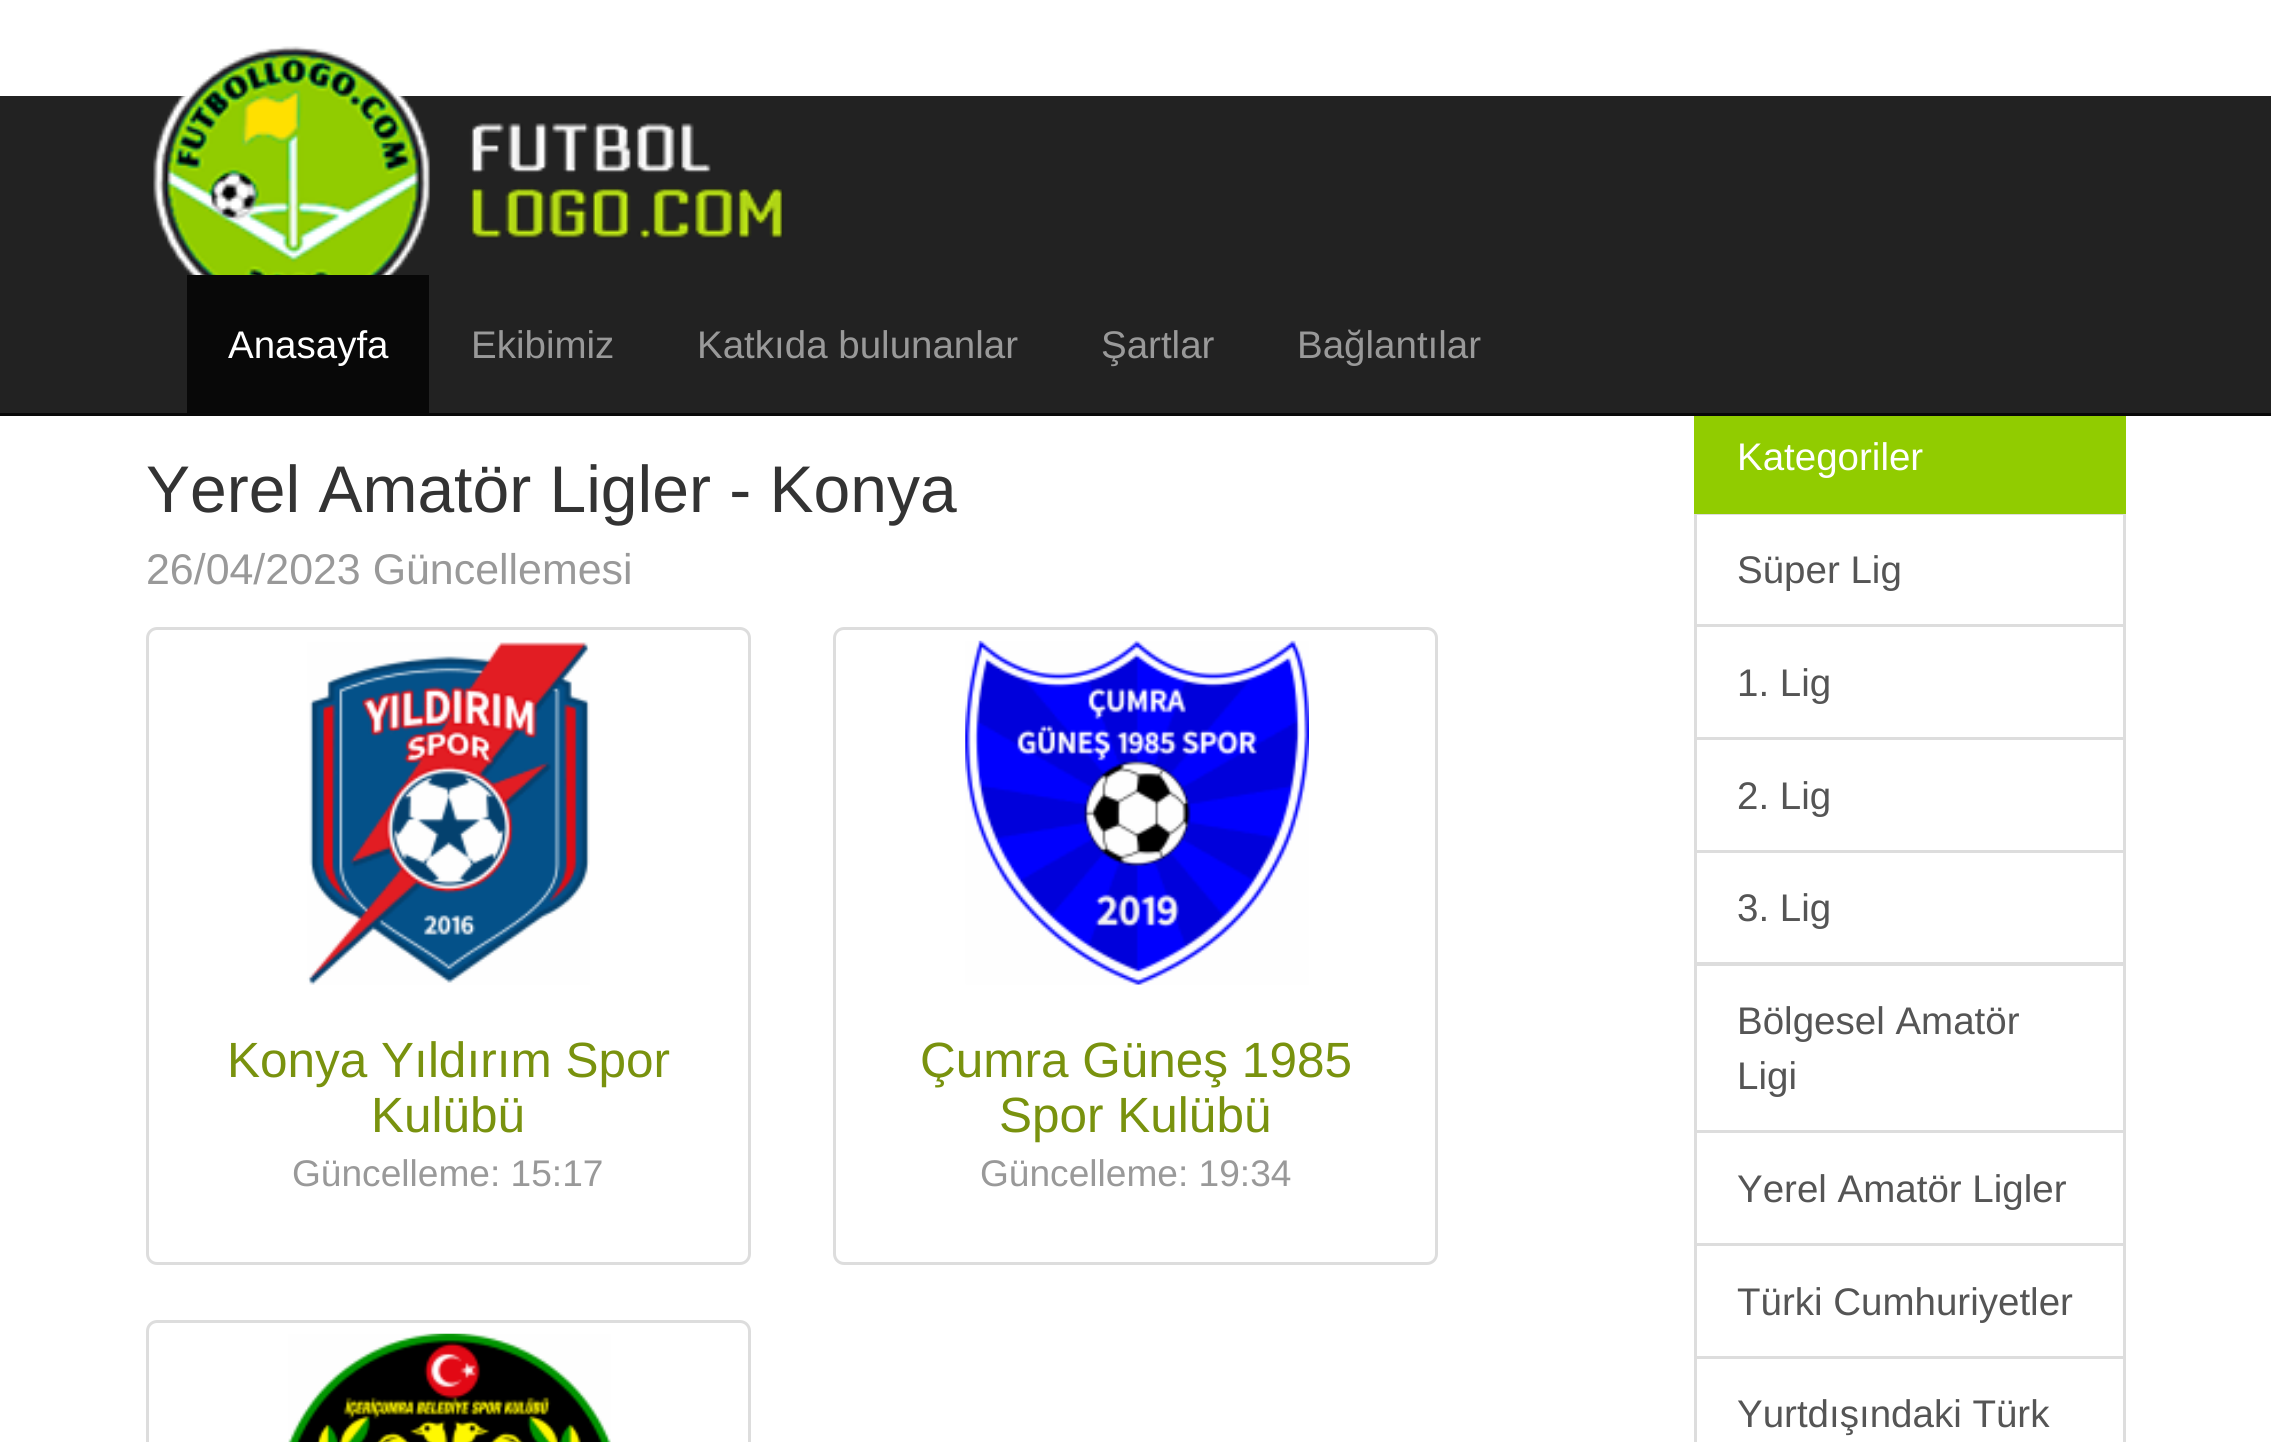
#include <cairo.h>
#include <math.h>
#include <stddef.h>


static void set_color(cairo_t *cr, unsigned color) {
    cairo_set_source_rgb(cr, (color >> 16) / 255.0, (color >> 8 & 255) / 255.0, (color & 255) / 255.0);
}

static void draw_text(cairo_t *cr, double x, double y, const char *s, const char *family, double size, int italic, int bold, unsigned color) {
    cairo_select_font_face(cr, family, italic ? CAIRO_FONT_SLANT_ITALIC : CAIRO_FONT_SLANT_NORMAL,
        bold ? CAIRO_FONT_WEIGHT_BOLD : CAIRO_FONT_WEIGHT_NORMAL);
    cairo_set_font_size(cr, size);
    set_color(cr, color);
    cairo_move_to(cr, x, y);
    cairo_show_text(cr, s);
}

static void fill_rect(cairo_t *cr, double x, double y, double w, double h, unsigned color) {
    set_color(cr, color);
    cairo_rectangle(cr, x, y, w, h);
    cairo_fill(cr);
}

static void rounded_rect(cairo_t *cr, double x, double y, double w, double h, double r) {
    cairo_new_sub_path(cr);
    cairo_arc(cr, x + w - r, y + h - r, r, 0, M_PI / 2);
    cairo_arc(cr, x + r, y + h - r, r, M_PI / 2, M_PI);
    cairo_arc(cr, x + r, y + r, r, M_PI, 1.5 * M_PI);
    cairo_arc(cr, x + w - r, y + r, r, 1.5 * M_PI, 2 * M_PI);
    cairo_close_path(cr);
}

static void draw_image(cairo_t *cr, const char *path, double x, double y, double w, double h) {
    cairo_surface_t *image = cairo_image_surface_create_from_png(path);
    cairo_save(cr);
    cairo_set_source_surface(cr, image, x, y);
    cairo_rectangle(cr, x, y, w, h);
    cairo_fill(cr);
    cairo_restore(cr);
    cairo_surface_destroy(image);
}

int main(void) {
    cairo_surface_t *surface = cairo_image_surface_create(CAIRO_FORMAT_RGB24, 2271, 1442);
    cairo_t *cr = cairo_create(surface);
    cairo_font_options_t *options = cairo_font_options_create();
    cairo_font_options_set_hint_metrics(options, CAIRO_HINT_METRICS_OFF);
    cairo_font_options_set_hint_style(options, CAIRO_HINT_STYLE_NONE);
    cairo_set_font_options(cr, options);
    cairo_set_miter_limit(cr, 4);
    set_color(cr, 0xFFFFFF);
    cairo_paint(cr);
    fill_rect(cr, 1697, 416, 426, 95, 0x91CC00);
    cairo_rectangle(cr, 1695.5, 513.5, 429, 112);
    set_color(cr, 0xDDDDDD);
    cairo_set_line_width(cr, 3);
    cairo_stroke(cr);
    cairo_rectangle(cr, 1695.5, 400.5, 429, 112);
    set_color(cr, 0x91CC00);
    cairo_stroke(cr);
    fill_rect(cr, 0, 96, 2271, 317, 0x222222);
    fill_rect(cr, 0, 413, 2271, 3, 0x080808);
    draw_image(cr, "assets/img1.png", 153, 46, 631, 229);
    fill_rect(cr, 187, 275, 242, 138, 0x080808);
    draw_text(cr, 228, 358, "Anasayfa", "Liberation Sans", 38.5, 0, 0, 0xFFFFFF);
    draw_text(cr, 471, 358, "Ekibimiz", "Liberation Sans", 38.5, 0, 0, 0x999999);
    draw_text(cr, 697, 358, "Katkıda bulunanlar", "Liberation Sans", 38.5, 0, 0, 0x999999);
    draw_text(cr, 1101, 358, "Şartlar", "Liberation Sans", 38.5, 0, 0, 0x999999);
    draw_text(cr, 1297, 358, "Bağlantılar", "Liberation Sans", 38.5, 0, 0, 0x999999);
    draw_text(cr, 146, 512, "Yerel Amatör Ligler - Konya", "Liberation Sans", 66, 0, 0, 0x333333);
    draw_text(cr, 146, 584, "26/04/2023 Güncellemesi", "Liberation Sans", 42.9, 0, 0, 0x999999);
    rounded_rect(cr, 147.5, 628.5, 602, 635, 9.5);
    set_color(cr, 0xDDDDDD);
    cairo_stroke(cr);
    draw_image(cr, "assets/img2.png", 307, 642, 283, 343);
    draw_text(cr, 227, 1077, "Konya Yıldırım Spor", "Liberation Sans", 49.5, 0, 0, 0x79920E);
    draw_text(cr, 371, 1132, "Kulübü", "Liberation Sans", 49.5, 0, 0, 0x79920E);
    draw_text(cr, 292, 1186, "Güncelleme: 15:17", "Liberation Sans", 37.1, 0, 0, 0x999999);
    rounded_rect(cr, 834.5, 628.5, 602, 635, 9.5);
    set_color(cr, 0xDDDDDD);
    cairo_stroke(cr);
    draw_image(cr, "assets/img3.png", 965, 640, 344, 345);
    draw_text(cr, 920, 1077, "Çumra Güneş 1985", "Liberation Sans", 49.5, 0, 0, 0x79920E);
    draw_text(cr, 999, 1132, "Spor Kulübü", "Liberation Sans", 49.5, 0, 0, 0x79920E);
    draw_text(cr, 980, 1186, "Güncelleme: 19:34", "Liberation Sans", 37.1, 0, 0, 0x999999);
    rounded_rect(cr, 147.5, 1321.5, 602, 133, 9.5);
    set_color(cr, 0xDDDDDD);
    cairo_stroke(cr);
    draw_image(cr, "assets/img4.png", 288, 1333, 323, 109);
    draw_text(cr, 1737, 470, "Kategoriler", "Liberation Sans", 38.5, 0, 0, 0xFFFFFF);
    draw_text(cr, 1737, 583, "Süper Lig", "Liberation Sans", 38.5, 0, 0, 0x555555);
    cairo_rectangle(cr, 1695.5, 625.5, 429, 113);
    set_color(cr, 0xDDDDDD);
    cairo_stroke(cr);
    draw_text(cr, 1737, 696, "1. Lig", "Liberation Sans", 38.5, 0, 0, 0x555555);
    cairo_rectangle(cr, 1695.5, 738.5, 429, 113);
    set_color(cr, 0xDDDDDD);
    cairo_stroke(cr);
    draw_text(cr, 1737, 809, "2. Lig", "Liberation Sans", 38.5, 0, 0, 0x555555);
    cairo_rectangle(cr, 1695.5, 851.5, 429, 112);
    set_color(cr, 0xDDDDDD);
    cairo_stroke(cr);
    draw_text(cr, 1737, 921, "3. Lig", "Liberation Sans", 38.5, 0, 0, 0x555555);
    cairo_rectangle(cr, 1695.5, 964.5, 429, 167);
    set_color(cr, 0xDDDDDD);
    cairo_stroke(cr);
    draw_text(cr, 1737, 1034, "Bölgesel Amatör", "Liberation Sans", 38.5, 0, 0, 0x555555);
    draw_text(cr, 1737, 1089, "Ligi", "Liberation Sans", 38.5, 0, 0, 0x555555);
    cairo_rectangle(cr, 1695.5, 1131.5, 429, 113);
    set_color(cr, 0xDDDDDD);
    cairo_stroke(cr);
    draw_text(cr, 1737, 1202, "Yerel Amatör Ligler", "Liberation Sans", 38.5, 0, 0, 0x555555);
    cairo_rectangle(cr, 1695.5, 1244.5, 429, 113);
    set_color(cr, 0xDDDDDD);
    cairo_stroke(cr);
    draw_text(cr, 1737, 1315, "Türki Cumhuriyetler", "Liberation Sans", 38.5, 0, 0, 0x555555);
    cairo_rectangle(cr, 1695.5, 1357.5, 429, 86);
    set_color(cr, 0xDDDDDD);
    cairo_stroke(cr);
    draw_text(cr, 1737, 1427, "Yurtdışındaki Türk", "Liberation Sans", 38.5, 0, 0, 0x555555);
    cairo_surface_write_to_png(surface, "output.png");
    cairo_font_options_destroy(options);
    cairo_destroy(cr);
    cairo_surface_destroy(surface);
    return 0;
}
